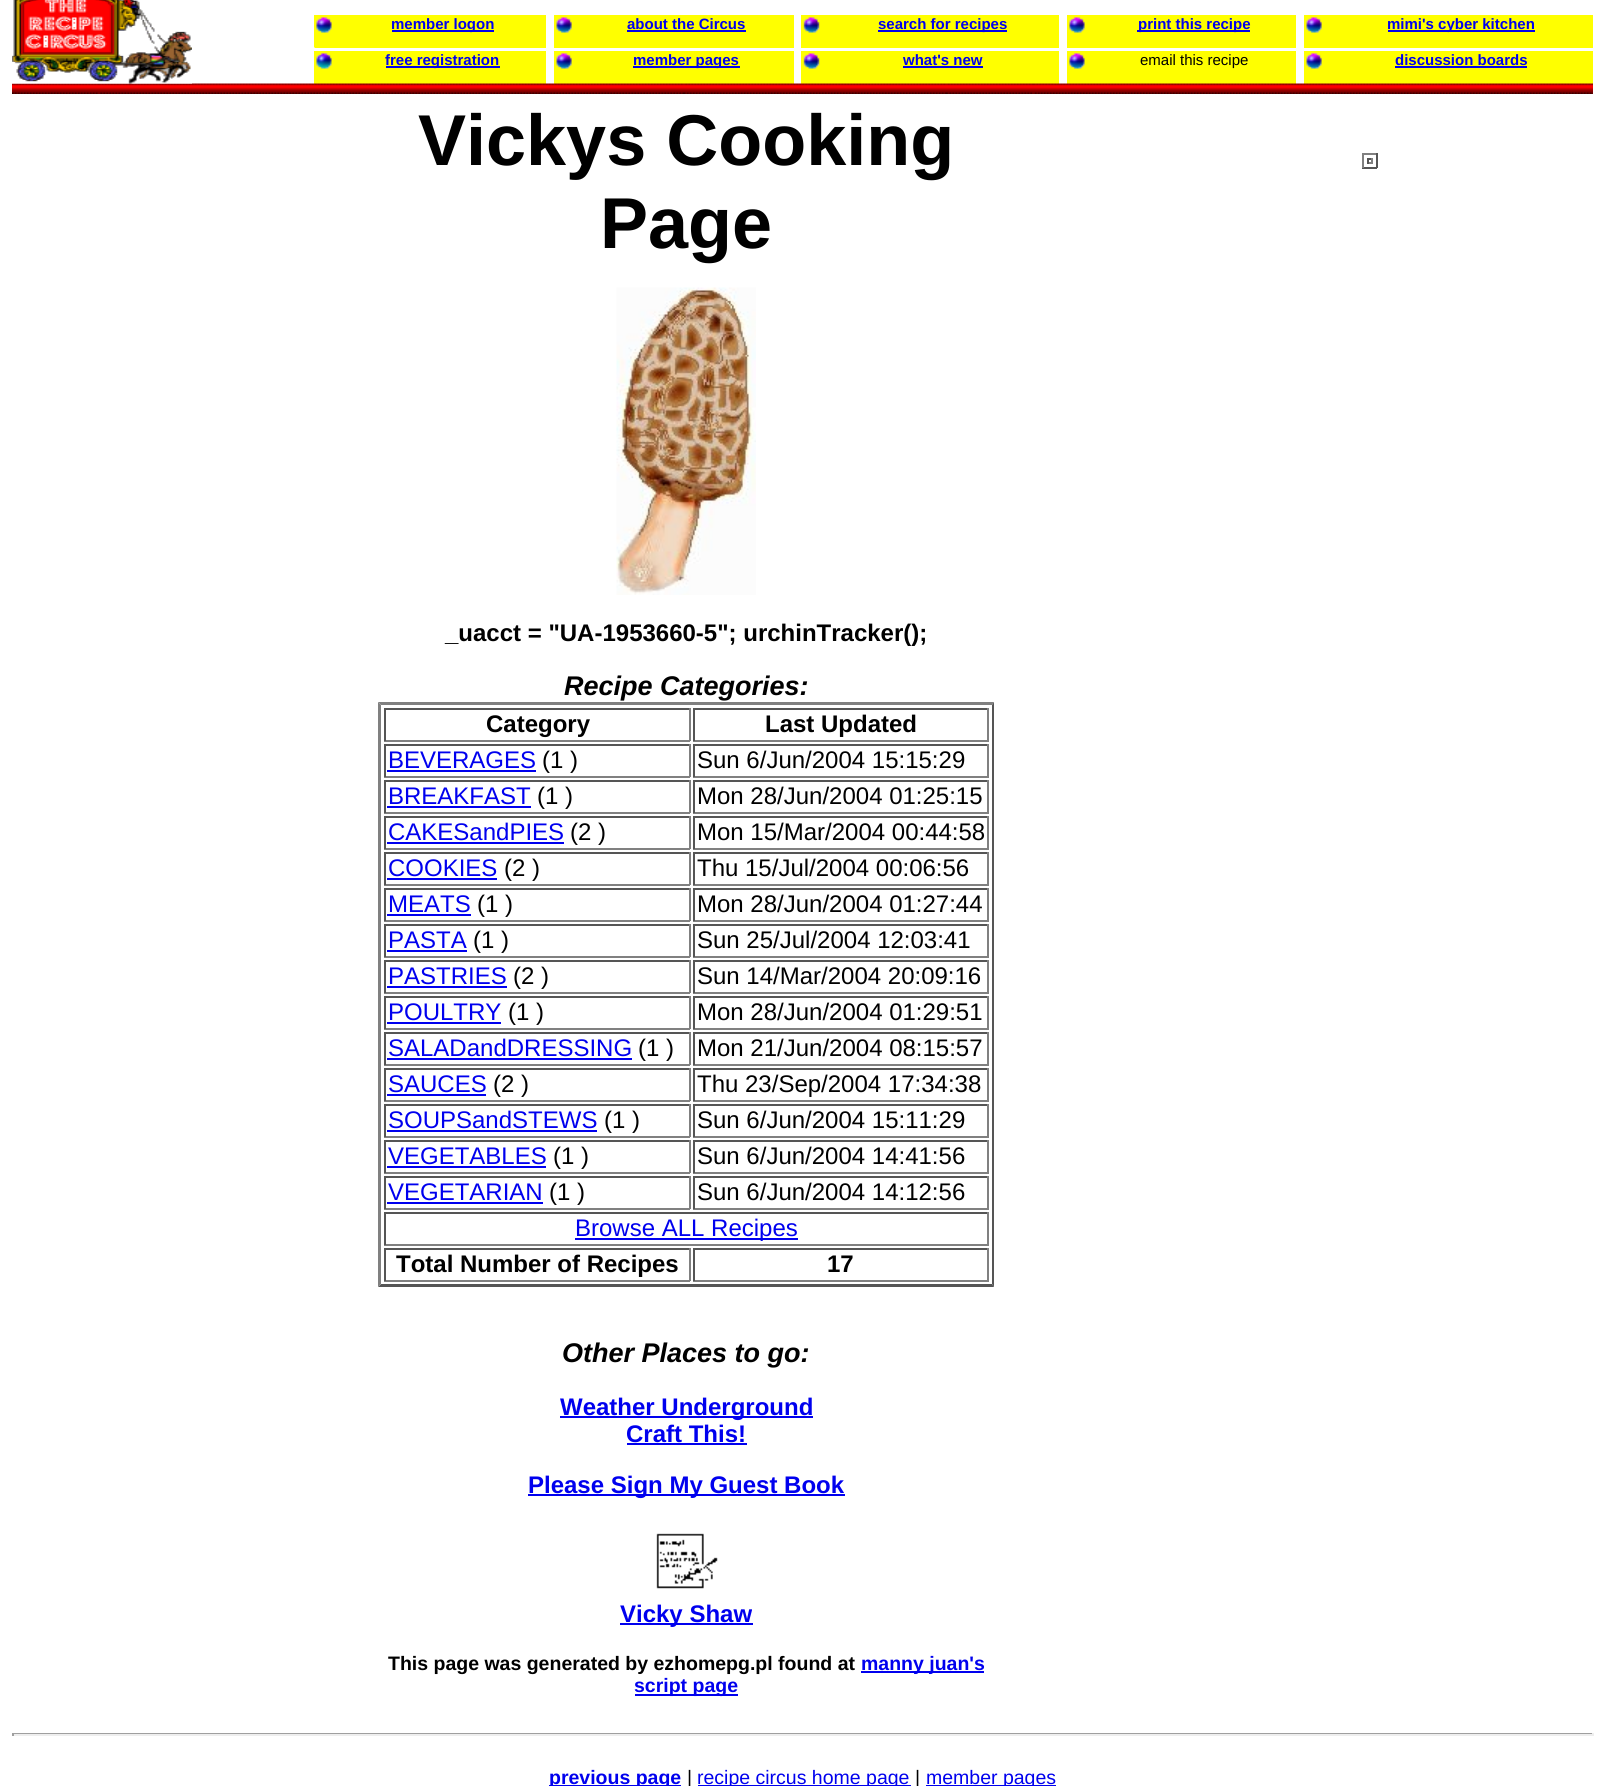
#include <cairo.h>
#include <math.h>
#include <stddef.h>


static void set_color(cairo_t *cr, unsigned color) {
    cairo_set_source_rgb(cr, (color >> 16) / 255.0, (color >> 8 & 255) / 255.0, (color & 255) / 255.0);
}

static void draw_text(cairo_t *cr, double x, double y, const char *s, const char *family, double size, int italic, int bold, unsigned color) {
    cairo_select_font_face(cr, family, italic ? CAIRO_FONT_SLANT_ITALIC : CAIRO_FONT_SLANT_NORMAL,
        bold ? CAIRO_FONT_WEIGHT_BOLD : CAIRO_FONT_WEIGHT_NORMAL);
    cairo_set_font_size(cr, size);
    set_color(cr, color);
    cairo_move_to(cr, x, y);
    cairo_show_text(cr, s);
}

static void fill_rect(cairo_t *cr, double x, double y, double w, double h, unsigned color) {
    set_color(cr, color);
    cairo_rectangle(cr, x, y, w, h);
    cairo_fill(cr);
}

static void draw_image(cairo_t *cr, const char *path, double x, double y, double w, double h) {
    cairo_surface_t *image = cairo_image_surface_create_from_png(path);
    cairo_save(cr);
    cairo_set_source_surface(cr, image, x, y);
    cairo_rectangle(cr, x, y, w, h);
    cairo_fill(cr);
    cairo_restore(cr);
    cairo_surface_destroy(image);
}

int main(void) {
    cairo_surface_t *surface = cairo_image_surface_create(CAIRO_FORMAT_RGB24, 1605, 1786);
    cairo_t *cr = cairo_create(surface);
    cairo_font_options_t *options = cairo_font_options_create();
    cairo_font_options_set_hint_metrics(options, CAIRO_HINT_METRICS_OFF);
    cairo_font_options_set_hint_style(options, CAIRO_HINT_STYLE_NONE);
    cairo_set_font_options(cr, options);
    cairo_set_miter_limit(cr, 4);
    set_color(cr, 0xFFFFFF);
    cairo_paint(cr);
    fill_rect(cr, 314, 51, 232, 33, 0xFFFF00);
    fill_rect(cr, 554, 51, 240, 33, 0xFFFF00);
    fill_rect(cr, 801, 51, 258, 33, 0xFFFF00);
    fill_rect(cr, 1067, 51, 229, 33, 0xFFFF00);
    fill_rect(cr, 1304, 51, 289, 33, 0xFFFF00);
    draw_image(cr, "assets/img6.png", 12, 83, 1581, 11);
    draw_image(cr, "assets/img1.png", 12, 0, 180, 84);
    fill_rect(cr, 314, 15, 232, 33, 0xFFFF00);
    draw_image(cr, "assets/img2.png", 316, 17, 16, 16);
    fill_rect(cr, 392, 30, 102, 2, 0x0000EE);
    draw_text(cr, 391, 29, "member logon", "Liberation Sans", 15, 0, 1, 0x0000EE);
    fill_rect(cr, 554, 15, 240, 33, 0xFFFF00);
    draw_image(cr, "assets/img3.png", 556, 17, 16, 16);
    draw_text(cr, 627, 29, "about the Circus", "Liberation Sans", 15, 0, 1, 0x0000EE);
    fill_rect(cr, 627, 30, 119, 2, 0x0000EE);
    fill_rect(cr, 801, 15, 258, 33, 0xFFFF00);
    draw_image(cr, "assets/img4.png", 803, 17, 17, 16);
    fill_rect(cr, 878, 30, 129, 2, 0x0000EE);
    draw_text(cr, 878, 29, "search for recipes", "Liberation Sans", 15, 0, 1, 0x0000EE);
    fill_rect(cr, 1067, 15, 229, 33, 0xFFFF00);
    draw_image(cr, "assets/img2.png", 1069, 17, 16, 16);
    fill_rect(cr, 1137, 30, 113, 2, 0x0000EE);
    draw_text(cr, 1138, 29, "print this recipe", "Liberation Sans", 15, 0, 1, 0x0000EE);
    fill_rect(cr, 1304, 15, 289, 33, 0xFFFF00);
    draw_image(cr, "assets/img3.png", 1306, 17, 16, 16);
    fill_rect(cr, 1388, 30, 147, 2, 0x0000EE);
    draw_text(cr, 1387, 29, "mimi's cyber kitchen", "Liberation Sans", 15, 0, 1, 0x0000EE);
    fill_rect(cr, 314, 47, 1, 1, 0xFFFF80);
    draw_image(cr, "assets/img5.png", 316, 53, 16, 16);
    fill_rect(cr, 386, 66, 114, 2, 0x0000EE);
    draw_text(cr, 385, 65, "free registration", "Liberation Sans", 15, 0, 1, 0x0000EE);
    draw_image(cr, "assets/img3.png", 556, 53, 16, 16);
    fill_rect(cr, 633, 66, 107, 2, 0x0000EE);
    draw_text(cr, 633, 65, "member pages", "Liberation Sans", 15, 0, 1, 0x0000EE);
    draw_image(cr, "assets/img4.png", 803, 53, 17, 16);
    draw_text(cr, 903, 65, "what's new", "Liberation Sans", 15, 0, 1, 0x0000EE);
    fill_rect(cr, 903, 66, 80, 2, 0x0000EE);
    draw_image(cr, "assets/img2.png", 1069, 53, 16, 16);
    draw_text(cr, 1140, 65, "email this recipe", "Liberation Sans", 15, 0, 0, 0x000000);
    draw_image(cr, "assets/img3.png", 1306, 53, 16, 16);
    draw_text(cr, 1395, 65, "discussion boards", "Liberation Sans", 15, 0, 1, 0x0000EE);
    fill_rect(cr, 1395, 66, 132, 2, 0x0000EE);
    draw_text(cr, 418, 165, "Vickys Cooking", "Liberation Sans", 72, 0, 1, 0x000000);
    draw_text(cr, 600, 248, "Page", "Liberation Sans", 72, 0, 1, 0x000000);
    draw_image(cr, "assets/img7.png", 616, 287, 140, 308);
    draw_text(cr, 445, 641, "_uacct = \"UA-1953660-5\"; urchinTracker();", "Liberation Sans", 24, 0, 1, 0x000000);
    draw_text(cr, 564, 695, "Recipe Categories:", "Liberation Sans", 27, 1, 1, 0x000000);
    set_color(cr, 0x808080);
    cairo_new_path(cr);
    cairo_move_to(cr, 378, 702);
    cairo_line_to(cr, 994, 702);
    cairo_line_to(cr, 992, 705);
    cairo_line_to(cr, 381, 705);
    cairo_close_path(cr);
    cairo_fill(cr);
    set_color(cr, 0x555555);
    cairo_new_path(cr);
    cairo_move_to(cr, 994, 702);
    cairo_line_to(cr, 994, 1287);
    cairo_line_to(cr, 992, 1284);
    cairo_line_to(cr, 992, 705);
    cairo_close_path(cr);
    cairo_fill(cr);
    cairo_new_path(cr);
    cairo_move_to(cr, 994, 1287);
    cairo_line_to(cr, 378, 1287);
    cairo_line_to(cr, 381, 1284);
    cairo_line_to(cr, 992, 1284);
    cairo_close_path(cr);
    cairo_fill(cr);
    set_color(cr, 0x808080);
    cairo_new_path(cr);
    cairo_move_to(cr, 378, 1287);
    cairo_line_to(cr, 378, 702);
    cairo_line_to(cr, 381, 705);
    cairo_line_to(cr, 381, 1284);
    cairo_close_path(cr);
    cairo_fill(cr);
    fill_rect(cr, 384, 708, 306, 2, 0x555555);
    fill_rect(cr, 689, 708, 2, 33, 0x808080);
    fill_rect(cr, 384, 740, 306, 2, 0x808080);
    fill_rect(cr, 384, 708, 2, 33, 0x555555);
    draw_text(cr, 486, 732, "Category", "Liberation Sans", 24, 0, 1, 0x000000);
    fill_rect(cr, 693, 708, 296, 2, 0x555555);
    fill_rect(cr, 987, 708, 2, 33, 0x808080);
    fill_rect(cr, 693, 740, 296, 2, 0x808080);
    fill_rect(cr, 693, 708, 2, 33, 0x555555);
    draw_text(cr, 765, 732, "Last Updated", "Liberation Sans", 24, 0, 1, 0x000000);
    fill_rect(cr, 384, 744, 306, 2, 0x555555);
    fill_rect(cr, 689, 744, 2, 33, 0x808080);
    fill_rect(cr, 384, 776, 306, 2, 0x808080);
    fill_rect(cr, 384, 744, 2, 33, 0x555555);
    draw_text(cr, 388, 768, "BEVERAGES", "Liberation Sans", 24, 0, 0, 0x0000EE);
    fill_rect(cr, 387, 770, 149, 2, 0x0000EE);
    draw_text(cr, 542, 768, "(1 )", "Liberation Sans", 24, 0, 0, 0x000000);
    fill_rect(cr, 693, 744, 296, 2, 0x555555);
    fill_rect(cr, 987, 744, 2, 33, 0x808080);
    fill_rect(cr, 693, 776, 296, 2, 0x808080);
    fill_rect(cr, 693, 744, 2, 33, 0x555555);
    draw_text(cr, 697, 768, "Sun 6/Jun/2004 15:15:29", "Liberation Sans", 24, 0, 0, 0x000000);
    fill_rect(cr, 384, 780, 306, 2, 0x555555);
    fill_rect(cr, 689, 780, 2, 33, 0x808080);
    fill_rect(cr, 384, 812, 306, 2, 0x808080);
    fill_rect(cr, 384, 780, 2, 33, 0x555555);
    draw_text(cr, 388, 804, "BREAKFAST", "Liberation Sans", 24, 0, 0, 0x0000EE);
    fill_rect(cr, 387, 806, 144, 2, 0x0000EE);
    draw_text(cr, 537, 804, "(1 )", "Liberation Sans", 24, 0, 0, 0x000000);
    fill_rect(cr, 693, 780, 296, 2, 0x555555);
    fill_rect(cr, 987, 780, 2, 33, 0x808080);
    fill_rect(cr, 693, 812, 296, 2, 0x808080);
    fill_rect(cr, 693, 780, 2, 33, 0x555555);
    draw_text(cr, 697, 804, "Mon 28/Jun/2004 01:25:15", "Liberation Sans", 24, 0, 0, 0x000000);
    fill_rect(cr, 384, 816, 306, 2, 0x555555);
    fill_rect(cr, 689, 816, 2, 33, 0x808080);
    fill_rect(cr, 384, 848, 306, 2, 0x808080);
    fill_rect(cr, 384, 816, 2, 33, 0x555555);
    draw_text(cr, 388, 840, "CAKESandPIES", "Liberation Sans", 24, 0, 0, 0x0000EE);
    fill_rect(cr, 387, 842, 177, 2, 0x0000EE);
    draw_text(cr, 570, 840, "(2 )", "Liberation Sans", 24, 0, 0, 0x000000);
    fill_rect(cr, 693, 816, 296, 2, 0x555555);
    fill_rect(cr, 987, 816, 2, 33, 0x808080);
    fill_rect(cr, 693, 848, 296, 2, 0x808080);
    fill_rect(cr, 693, 816, 2, 33, 0x555555);
    draw_text(cr, 697, 840, "Mon 15/Mar/2004 00:44:58", "Liberation Sans", 24, 0, 0, 0x000000);
    fill_rect(cr, 384, 852, 306, 2, 0x555555);
    fill_rect(cr, 689, 852, 2, 33, 0x808080);
    fill_rect(cr, 384, 884, 306, 2, 0x808080);
    fill_rect(cr, 384, 852, 2, 33, 0x555555);
    draw_text(cr, 388, 876, "COOKIES", "Liberation Sans", 24, 0, 0, 0x0000EE);
    fill_rect(cr, 387, 878, 110, 2, 0x0000EE);
    draw_text(cr, 504, 876, "(2 )", "Liberation Sans", 24, 0, 0, 0x000000);
    fill_rect(cr, 693, 852, 296, 2, 0x555555);
    fill_rect(cr, 987, 852, 2, 33, 0x808080);
    fill_rect(cr, 693, 884, 296, 2, 0x808080);
    fill_rect(cr, 693, 852, 2, 33, 0x555555);
    draw_text(cr, 697, 876, "Thu 15/Jul/2004 00:06:56", "Liberation Sans", 24, 0, 0, 0x000000);
    fill_rect(cr, 384, 888, 306, 2, 0x555555);
    fill_rect(cr, 689, 888, 2, 33, 0x808080);
    fill_rect(cr, 384, 920, 306, 2, 0x808080);
    fill_rect(cr, 384, 888, 2, 33, 0x555555);
    draw_text(cr, 388, 912, "MEATS", "Liberation Sans", 24, 0, 0, 0x0000EE);
    fill_rect(cr, 387, 914, 84, 2, 0x0000EE);
    draw_text(cr, 477, 912, "(1 )", "Liberation Sans", 24, 0, 0, 0x000000);
    fill_rect(cr, 693, 888, 296, 2, 0x555555);
    fill_rect(cr, 987, 888, 2, 33, 0x808080);
    fill_rect(cr, 693, 920, 296, 2, 0x808080);
    fill_rect(cr, 693, 888, 2, 33, 0x555555);
    draw_text(cr, 697, 912, "Mon 28/Jun/2004 01:27:44", "Liberation Sans", 24, 0, 0, 0x000000);
    fill_rect(cr, 384, 924, 306, 2, 0x555555);
    fill_rect(cr, 689, 924, 2, 33, 0x808080);
    fill_rect(cr, 384, 956, 306, 2, 0x808080);
    fill_rect(cr, 384, 924, 2, 33, 0x555555);
    draw_text(cr, 388, 948, "PASTA", "Liberation Sans", 24, 0, 0, 0x0000EE);
    fill_rect(cr, 387, 950, 80, 2, 0x0000EE);
    draw_text(cr, 473, 948, "(1 )", "Liberation Sans", 24, 0, 0, 0x000000);
    fill_rect(cr, 693, 924, 296, 2, 0x555555);
    fill_rect(cr, 987, 924, 2, 33, 0x808080);
    fill_rect(cr, 693, 956, 296, 2, 0x808080);
    fill_rect(cr, 693, 924, 2, 33, 0x555555);
    draw_text(cr, 697, 948, "Sun 25/Jul/2004 12:03:41", "Liberation Sans", 24, 0, 0, 0x000000);
    fill_rect(cr, 384, 960, 306, 2, 0x555555);
    fill_rect(cr, 689, 960, 2, 33, 0x808080);
    fill_rect(cr, 384, 992, 306, 2, 0x808080);
    fill_rect(cr, 384, 960, 2, 33, 0x555555);
    draw_text(cr, 388, 984, "PASTRIES", "Liberation Sans", 24, 0, 0, 0x0000EE);
    fill_rect(cr, 387, 986, 120, 2, 0x0000EE);
    draw_text(cr, 513, 984, "(2 )", "Liberation Sans", 24, 0, 0, 0x000000);
    fill_rect(cr, 693, 960, 296, 2, 0x555555);
    fill_rect(cr, 987, 960, 2, 33, 0x808080);
    fill_rect(cr, 693, 992, 296, 2, 0x808080);
    fill_rect(cr, 693, 960, 2, 33, 0x555555);
    draw_text(cr, 697, 984, "Sun 14/Mar/2004 20:09:16", "Liberation Sans", 24, 0, 0, 0x000000);
    fill_rect(cr, 384, 996, 306, 2, 0x555555);
    fill_rect(cr, 689, 996, 2, 33, 0x808080);
    fill_rect(cr, 384, 1028, 306, 2, 0x808080);
    fill_rect(cr, 384, 996, 2, 33, 0x555555);
    draw_text(cr, 388, 1020, "POULTRY", "Liberation Sans", 24, 0, 0, 0x0000EE);
    fill_rect(cr, 387, 1022, 114, 2, 0x0000EE);
    draw_text(cr, 508, 1020, "(1 )", "Liberation Sans", 24, 0, 0, 0x000000);
    fill_rect(cr, 693, 996, 296, 2, 0x555555);
    fill_rect(cr, 987, 996, 2, 33, 0x808080);
    fill_rect(cr, 693, 1028, 296, 2, 0x808080);
    fill_rect(cr, 693, 996, 2, 33, 0x555555);
    draw_text(cr, 697, 1020, "Mon 28/Jun/2004 01:29:51", "Liberation Sans", 24, 0, 0, 0x000000);
    fill_rect(cr, 384, 1032, 306, 2, 0x555555);
    fill_rect(cr, 689, 1032, 2, 33, 0x808080);
    fill_rect(cr, 384, 1064, 306, 2, 0x808080);
    fill_rect(cr, 384, 1032, 2, 33, 0x555555);
    draw_text(cr, 388, 1056, "SALADandDRESSING", "Liberation Sans", 24, 0, 0, 0x0000EE);
    fill_rect(cr, 387, 1058, 245, 2, 0x0000EE);
    draw_text(cr, 638, 1056, "(1 )", "Liberation Sans", 24, 0, 0, 0x000000);
    fill_rect(cr, 693, 1032, 296, 2, 0x555555);
    fill_rect(cr, 987, 1032, 2, 33, 0x808080);
    fill_rect(cr, 693, 1064, 296, 2, 0x808080);
    fill_rect(cr, 693, 1032, 2, 33, 0x555555);
    draw_text(cr, 697, 1056, "Mon 21/Jun/2004 08:15:57", "Liberation Sans", 24, 0, 0, 0x000000);
    fill_rect(cr, 384, 1068, 306, 2, 0x555555);
    fill_rect(cr, 689, 1068, 2, 33, 0x808080);
    fill_rect(cr, 384, 1100, 306, 2, 0x808080);
    fill_rect(cr, 384, 1068, 2, 33, 0x555555);
    draw_text(cr, 388, 1092, "SAUCES", "Liberation Sans", 24, 0, 0, 0x0000EE);
    fill_rect(cr, 387, 1094, 99, 2, 0x0000EE);
    draw_text(cr, 493, 1092, "(2 )", "Liberation Sans", 24, 0, 0, 0x000000);
    fill_rect(cr, 693, 1068, 296, 2, 0x555555);
    fill_rect(cr, 987, 1068, 2, 33, 0x808080);
    fill_rect(cr, 693, 1100, 296, 2, 0x808080);
    fill_rect(cr, 693, 1068, 2, 33, 0x555555);
    draw_text(cr, 697, 1092, "Thu 23/Sep/2004 17:34:38", "Liberation Sans", 24, 0, 0, 0x000000);
    fill_rect(cr, 384, 1104, 306, 2, 0x555555);
    fill_rect(cr, 689, 1104, 2, 33, 0x808080);
    fill_rect(cr, 384, 1136, 306, 2, 0x808080);
    fill_rect(cr, 384, 1104, 2, 33, 0x555555);
    draw_text(cr, 388, 1128, "SOUPSandSTEWS", "Liberation Sans", 24, 0, 0, 0x0000EE);
    fill_rect(cr, 387, 1130, 210, 2, 0x0000EE);
    draw_text(cr, 604, 1128, "(1 )", "Liberation Sans", 24, 0, 0, 0x000000);
    fill_rect(cr, 693, 1104, 296, 2, 0x555555);
    fill_rect(cr, 987, 1104, 2, 33, 0x808080);
    fill_rect(cr, 693, 1136, 296, 2, 0x808080);
    fill_rect(cr, 693, 1104, 2, 33, 0x555555);
    draw_text(cr, 697, 1128, "Sun 6/Jun/2004 15:11:29", "Liberation Sans", 24, 0, 0, 0x000000);
    fill_rect(cr, 384, 1140, 306, 2, 0x555555);
    fill_rect(cr, 689, 1140, 2, 33, 0x808080);
    fill_rect(cr, 384, 1172, 306, 2, 0x808080);
    fill_rect(cr, 384, 1140, 2, 33, 0x555555);
    draw_text(cr, 388, 1164, "VEGETABLES", "Liberation Sans", 24, 0, 0, 0x0000EE);
    fill_rect(cr, 387, 1166, 159, 2, 0x0000EE);
    draw_text(cr, 553, 1164, "(1 )", "Liberation Sans", 24, 0, 0, 0x000000);
    fill_rect(cr, 693, 1140, 296, 2, 0x555555);
    fill_rect(cr, 987, 1140, 2, 33, 0x808080);
    fill_rect(cr, 693, 1172, 296, 2, 0x808080);
    fill_rect(cr, 693, 1140, 2, 33, 0x555555);
    draw_text(cr, 697, 1164, "Sun 6/Jun/2004 14:41:56", "Liberation Sans", 24, 0, 0, 0x000000);
    fill_rect(cr, 384, 1176, 306, 2, 0x555555);
    fill_rect(cr, 689, 1176, 2, 33, 0x808080);
    fill_rect(cr, 384, 1208, 306, 2, 0x808080);
    fill_rect(cr, 384, 1176, 2, 33, 0x555555);
    draw_text(cr, 388, 1200, "VEGETARIAN", "Liberation Sans", 24, 0, 0, 0x0000EE);
    fill_rect(cr, 387, 1202, 156, 2, 0x0000EE);
    draw_text(cr, 549, 1200, "(1 )", "Liberation Sans", 24, 0, 0, 0x000000);
    fill_rect(cr, 693, 1176, 296, 2, 0x555555);
    fill_rect(cr, 987, 1176, 2, 33, 0x808080);
    fill_rect(cr, 693, 1208, 296, 2, 0x808080);
    fill_rect(cr, 693, 1176, 2, 33, 0x555555);
    draw_text(cr, 697, 1200, "Sun 6/Jun/2004 14:12:56", "Liberation Sans", 24, 0, 0, 0x000000);
    fill_rect(cr, 384, 1212, 605, 2, 0x555555);
    fill_rect(cr, 987, 1212, 2, 33, 0x808080);
    fill_rect(cr, 384, 1244, 605, 2, 0x808080);
    fill_rect(cr, 384, 1212, 2, 33, 0x555555);
    fill_rect(cr, 575, 1238, 223, 2, 0x0000EE);
    draw_text(cr, 575, 1236, "Browse ALL Recipes", "Liberation Sans", 24, 0, 0, 0x0000EE);
    fill_rect(cr, 384, 1248, 306, 2, 0x555555);
    fill_rect(cr, 689, 1248, 2, 33, 0x808080);
    fill_rect(cr, 384, 1280, 306, 2, 0x808080);
    fill_rect(cr, 384, 1248, 2, 33, 0x555555);
    draw_text(cr, 396, 1272, "Total Number of Recipes", "Liberation Sans", 24, 0, 1, 0x000000);
    fill_rect(cr, 693, 1248, 296, 2, 0x555555);
    fill_rect(cr, 987, 1248, 2, 33, 0x808080);
    fill_rect(cr, 693, 1280, 296, 2, 0x808080);
    fill_rect(cr, 693, 1248, 2, 33, 0x555555);
    draw_text(cr, 827, 1272, "17", "Liberation Sans", 24, 0, 1, 0x000000);
    draw_text(cr, 562, 1362, "Other Places to go:", "Liberation Sans", 27, 1, 1, 0x000000);
    fill_rect(cr, 560, 1416, 253, 2, 0x0000EE);
    draw_text(cr, 560, 1415, "Weather Underground", "Liberation Sans", 24, 0, 1, 0x0000EE);
    draw_text(cr, 626, 1442, "Craft This!", "Liberation Sans", 24, 0, 1, 0x0000EE);
    fill_rect(cr, 627, 1443, 120, 2, 0x0000EE);
    fill_rect(cr, 528, 1494, 317, 2, 0x0000EE);
    draw_text(cr, 528, 1493, "Please Sign My Guest Book", "Liberation Sans", 24, 0, 1, 0x0000EE);
    draw_image(cr, "assets/img8.png", 656, 1533, 62, 56);
    fill_rect(cr, 620, 1623, 133, 2, 0x0000EE);
    draw_text(cr, 620, 1622, "Vicky Shaw", "Liberation Sans", 24, 0, 1, 0x0000EE);
    draw_text(cr, 388, 1670, "This page was generated by ezhomepg.pl found at", "Liberation Sans", 19.5, 0, 1, 0x000000);
    fill_rect(cr, 861, 1671, 123, 2, 0x0000EE);
    draw_text(cr, 861, 1670, "manny juan's", "Liberation Sans", 19.5, 0, 1, 0x0000EE);
    fill_rect(cr, 635, 1694, 103, 2, 0x0000EE);
    draw_text(cr, 634, 1692, "script page", "Liberation Sans", 19.5, 0, 1, 0x0000EE);
    fill_rect(cr, 1362, 153, 15, 2, 0x808080);
    fill_rect(cr, 1376, 153, 2, 15, 0x555555);
    fill_rect(cr, 1362, 167, 15, 2, 0x555555);
    fill_rect(cr, 1362, 153, 2, 15, 0x808080);
    fill_rect(cr, 1367, 158, 6, 2, 0x555555);
    fill_rect(cr, 1371, 158, 2, 6, 0x808080);
    fill_rect(cr, 1367, 162, 6, 2, 0x808080);
    fill_rect(cr, 1367, 158, 2, 6, 0x555555);
    fill_rect(cr, 12, 1733, 1581, 1, 0x9F9F9F);
    fill_rect(cr, 1592, 1733, 2, 3, 0xEEEEEE);
    fill_rect(cr, 12, 1734, 1581, 2, 0xEEEEEE);
    fill_rect(cr, 12, 1733, 2, 3, 0x9F9F9F);
    fill_rect(cr, 549, 1785, 132, 1, 0x0000EE);
    draw_text(cr, 549, 1784, "previous page", "Liberation Sans", 19.5, 0, 1, 0x0000EE);
    draw_text(cr, 687, 1784, "|", "Liberation Sans", 19.5, 0, 0, 0x000000);
    fill_rect(cr, 698, 1785, 213, 1, 0x0000EE);
    draw_text(cr, 697, 1784, "recipe circus home page", "Liberation Sans", 19.5, 0, 0, 0x0000EE);
    draw_text(cr, 915, 1784, "|", "Liberation Sans", 19.5, 0, 0, 0x000000);
    fill_rect(cr, 926, 1785, 130, 1, 0x0000EE);
    draw_text(cr, 926, 1784, "member pages", "Liberation Sans", 19.5, 0, 0, 0x0000EE);
    cairo_surface_write_to_png(surface, "output.png");
    cairo_font_options_destroy(options);
    cairo_destroy(cr);
    cairo_surface_destroy(surface);
    return 0;
}
